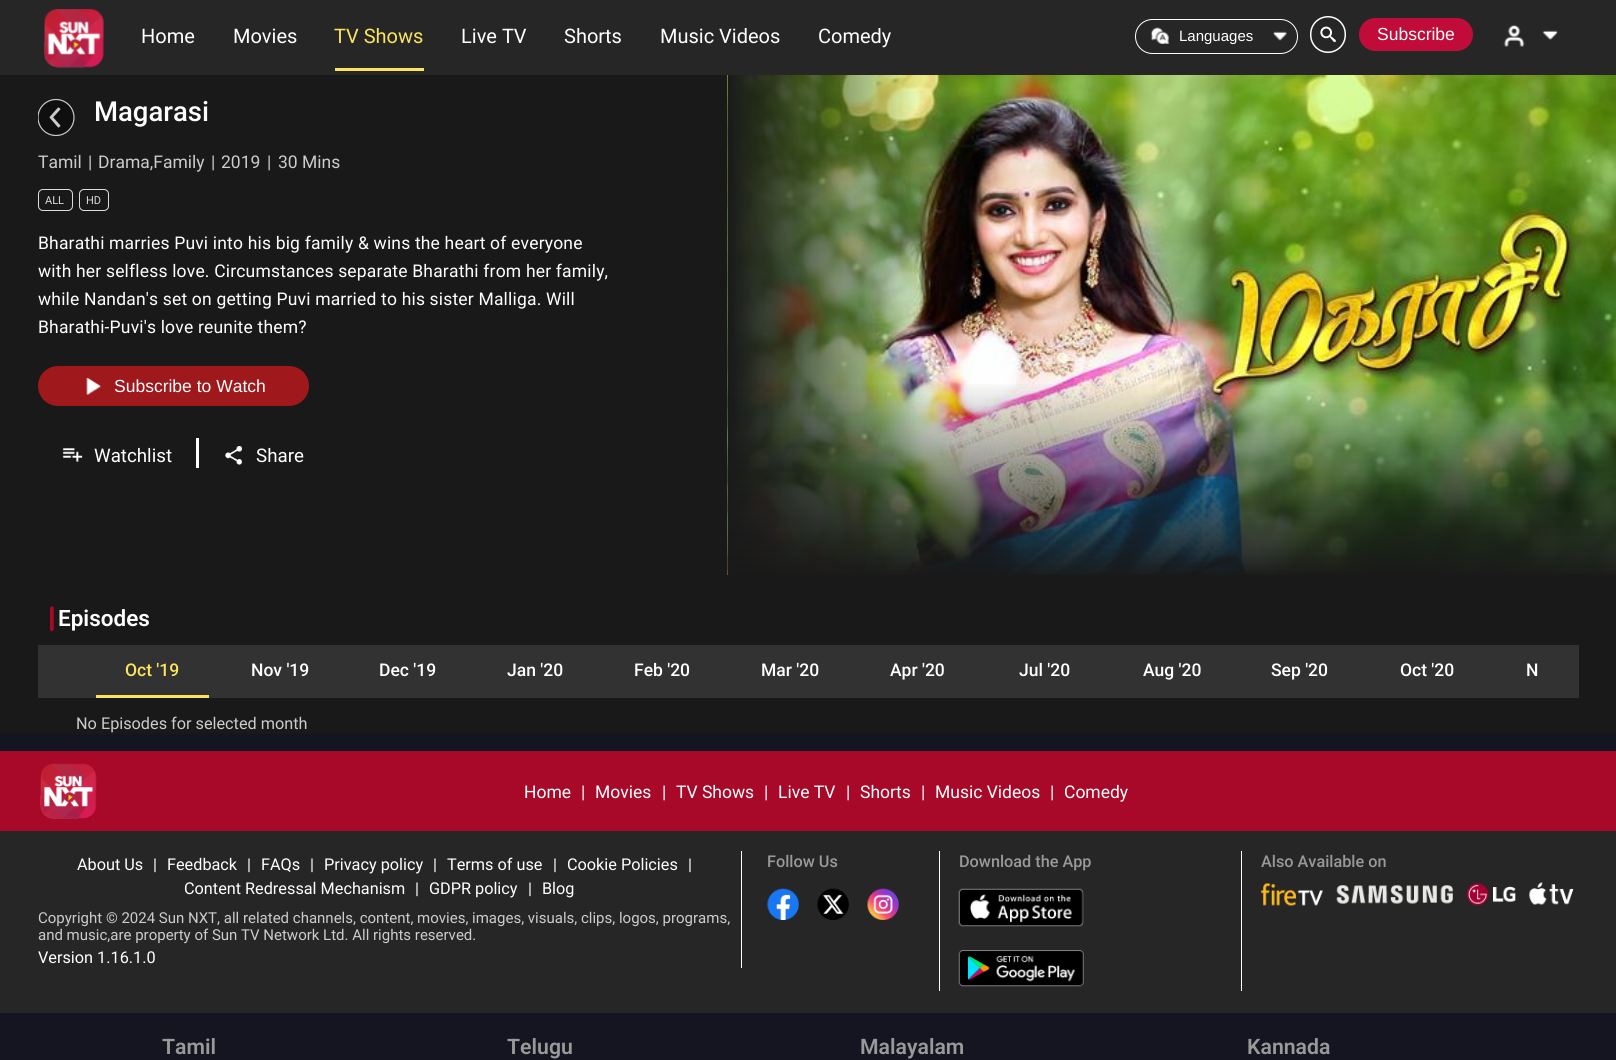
#include <cairo.h>
#include <math.h>
#include <stddef.h>


static void set_color(cairo_t *cr, unsigned color) {
    cairo_set_source_rgb(cr, (color >> 16) / 255.0, (color >> 8 & 255) / 255.0, (color & 255) / 255.0);
}

static void draw_text(cairo_t *cr, double x, double y, const char *s, const char *family, double size, int italic, int bold, unsigned color) {
    cairo_select_font_face(cr, family, italic ? CAIRO_FONT_SLANT_ITALIC : CAIRO_FONT_SLANT_NORMAL,
        bold ? CAIRO_FONT_WEIGHT_BOLD : CAIRO_FONT_WEIGHT_NORMAL);
    cairo_set_font_size(cr, size);
    set_color(cr, color);
    cairo_move_to(cr, x, y);
    cairo_show_text(cr, s);
}

static void draw_spaced(cairo_t *cr, double x, double y, const char *s, double letter, double word) {
    cairo_move_to(cr, x, y);
    while (*s) {
        char ch[5] = {0};
        int n = 0;
        do ch[n++] = *s++; while ((*s & 0xC0) == 0x80);
        cairo_show_text(cr, ch);
        cairo_rel_move_to(cr, letter + word * (*ch == ' '), 0);
    }
}

static void fill_rect(cairo_t *cr, double x, double y, double w, double h, unsigned color) {
    set_color(cr, color);
    cairo_rectangle(cr, x, y, w, h);
    cairo_fill(cr);
}

static void rounded_rect(cairo_t *cr, double x, double y, double w, double h, double r) {
    cairo_new_sub_path(cr);
    cairo_arc(cr, x + w - r, y + h - r, r, 0, M_PI / 2);
    cairo_arc(cr, x + r, y + h - r, r, M_PI / 2, M_PI);
    cairo_arc(cr, x + r, y + r, r, M_PI, 1.5 * M_PI);
    cairo_arc(cr, x + w - r, y + r, r, 1.5 * M_PI, 2 * M_PI);
    cairo_close_path(cr);
}

static void draw_image(cairo_t *cr, const char *path, double x, double y, double w, double h) {
    cairo_surface_t *image = cairo_image_surface_create_from_png(path);
    cairo_save(cr);
    cairo_set_source_surface(cr, image, x, y);
    cairo_rectangle(cr, x, y, w, h);
    cairo_fill(cr);
    cairo_restore(cr);
    cairo_surface_destroy(image);
}

int main(void) {
    cairo_surface_t *surface = cairo_image_surface_create(CAIRO_FORMAT_RGB24, 1616, 1060);
    cairo_t *cr = cairo_create(surface);
    cairo_font_options_t *options = cairo_font_options_create();
    cairo_font_options_set_hint_metrics(options, CAIRO_HINT_METRICS_OFF);
    cairo_font_options_set_hint_style(options, CAIRO_HINT_STYLE_NONE);
    cairo_set_font_options(cr, options);
    cairo_set_miter_limit(cr, 4);
    cairo_pattern_t *gradient;
    set_color(cr, 0x191919);
    cairo_paint(cr);
    fill_rect(cr, 0, 0, 1616, 75, 0x262626);
    draw_image(cr, "assets/img1.png", 44, 9, 60, 59);
    draw_text(cr, 141, 43, "Home", "Roboto", 20, 0, 0, 0xFFFFFF);
    draw_text(cr, 233, 43, "Movies", "Roboto", 20, 0, 0, 0xFFFFFF);
    fill_rect(cr, 335, 68, 89, 3, 0xFCE45E);
    draw_text(cr, 334, 43, "TV Shows", "Roboto", 20, 0, 0, 0xFCE45E);
    draw_text(cr, 461, 43, "Live TV", "Roboto", 20, 0, 0, 0xFFFFFF);
    draw_text(cr, 564, 43, "Shorts", "Roboto", 20, 0, 0, 0xFFFFFF);
    draw_text(cr, 660, 43, "Music Videos", "Roboto", 20, 0, 0, 0xFFFFFF);
    draw_text(cr, 818, 43, "Comedy", "Roboto", 20, 0, 0, 0xFFFFFF);
    rounded_rect(cr, 1135.5, 19.5, 162, 34, 17);
    cairo_set_line_width(cr, 1);
    cairo_stroke(cr);
    draw_image(cr, "assets/img2.png", 1150, 27, 19, 17);
    draw_text(cr, 1179, 41, "Languages", "Liberation Sans", 15, 0, 0, 0xFFFFFF);
    draw_image(cr, "assets/img3.png", 1273, 31, 14, 10);
    draw_image(cr, "assets/img4.png", 1310, 16, 36, 37);
    set_color(cr, 0xC10C3A);
    rounded_rect(cr, 1359, 18, 114, 33, 16.5);
    cairo_fill(cr);
    draw_text(cr, 1377, 40, "Subscribe", "Liberation Sans", 17.5, 0, 0, 0xFFFFFF);
    draw_image(cr, "assets/img5.png", 1503, 25, 55, 22);
    draw_image(cr, "assets/img6.png", 38, 99, 37, 37);
    draw_text(cr, 94, 121, "Magarasi", "Roboto Medium", 27.5, 0, 0, 0xFFFFFF);
    draw_text(cr, 38, 168, "Tamil", "Roboto", 17.5, 0, 0, 0xCCCCCC);
    draw_text(cr, 88, 168, "|", "Roboto", 17.5, 0, 0, 0xCCCCCC);
    draw_text(cr, 98, 168, "Drama,Family", "Roboto", 17.5, 0, 0, 0xCCCCCC);
    draw_text(cr, 211, 168, "|", "Roboto", 17.5, 0, 0, 0xCCCCCC);
    draw_text(cr, 221, 168, "2019", "Roboto", 17.5, 0, 0, 0xCCCCCC);
    draw_text(cr, 267, 168, "|", "Roboto", 17.5, 0, 0, 0xCCCCCC);
    draw_text(cr, 278, 168, "30 Mins", "Roboto", 17.5, 0, 0, 0xCCCCCC);
    rounded_rect(cr, 38.5, 189.5, 34, 21, 4.5);
    set_color(cr, 0xDDDDDD);
    cairo_stroke(cr);
    draw_text(cr, 45, 204, "ALL", "Roboto", 11, 0, 0, 0xDDDDDD);
    rounded_rect(cr, 79.5, 189.5, 29, 21, 4.5);
    cairo_stroke(cr);
    draw_text(cr, 86, 204, "HD", "Roboto", 11, 0, 0, 0xDDDDDD);
    cairo_set_font_size(cr, 17.5);
    set_color(cr, 0xFFFFFF);
    draw_spaced(cr, 38, 249, "Bharathi marries Puvi into his big family & wins the heart of everyone", 0.18, 0);
    draw_spaced(cr, 38, 277, "with her selfless love. Circumstances separate Bharathi from her family,", 0.18, 0);
    draw_spaced(cr, 38, 305, "while Nandan's set on getting Puvi married to his sister Malliga. Will", 0.18, 0);
    draw_spaced(cr, 38, 333, "Bharathi-Puvi's love reunite them?", 0.18, 0);
    set_color(cr, 0x9F181B);
    rounded_rect(cr, 38, 366, 271, 40, 20);
    cairo_fill(cr);
    draw_image(cr, "assets/img7.png", 86, 377, 15, 18);
    draw_text(cr, 114, 392, "Subscribe to Watch", "Liberation Sans", 17.5, 0, 0, 0xFFFFFF);
    fill_rect(cr, 196, 438, 3, 30, 0xFFFFFF);
    draw_image(cr, "assets/img8.png", 62, 448, 21, 14);
    draw_text(cr, 94, 462, "Watchlist", "Roboto", 18.75, 0, 0, 0xFFFFFF);
    draw_image(cr, "assets/img9.png", 225, 446, 17, 19);
    draw_text(cr, 256, 462, "Share", "Roboto", 18.75, 0, 0, 0xFFFFFF);
    draw_image(cr, "assets/img10.png", 727, 75, 889, 500);
    gradient = cairo_pattern_create_linear(1172, 380, 1172, 580);
    cairo_pattern_add_color_stop_rgba(gradient, 0, 0.098, 0.098, 0.098, 0);
    cairo_pattern_add_color_stop_rgba(gradient, 1, 0.098, 0.098, 0.098, 1);
    cairo_set_source(cr, gradient);
    cairo_pattern_destroy(gradient);
    cairo_rectangle(cr, 731, 384, 885, 191);
    cairo_fill(cr);
    draw_image(cr, "assets/img11.png", 50, 606, 4, 26);
    draw_text(cr, 58, 626, "Episodes", "Roboto SemiBold", 22.5, 0, 0, 0xFFFFFF);
    fill_rect(cr, 38, 645, 1541, 53, 0x323232);
    fill_rect(cr, 96, 695, 113, 3, 0xFCE45E);
    draw_text(cr, 125, 676, "Oct '19", "Roboto Medium", 17.5, 0, 0, 0xFCE45E);
    draw_text(cr, 251, 676, "Nov '19", "Roboto Medium", 17.5, 0, 0, 0xFFFFFF);
    draw_text(cr, 379, 676, "Dec '19", "Roboto Medium", 17.5, 0, 0, 0xFFFFFF);
    draw_text(cr, 507, 676, "Jan '20", "Roboto Medium", 17.5, 0, 0, 0xFFFFFF);
    draw_text(cr, 634, 676, "Feb '20", "Roboto Medium", 17.5, 0, 0, 0xFFFFFF);
    draw_text(cr, 761, 676, "Mar '20", "Roboto Medium", 17.5, 0, 0, 0xFFFFFF);
    draw_text(cr, 890, 676, "Apr '20", "Roboto Medium", 17.5, 0, 0, 0xFFFFFF);
    draw_text(cr, 1019, 676, "Jul '20", "Roboto Medium", 17.5, 0, 0, 0xFFFFFF);
    draw_text(cr, 1143, 676, "Aug '20", "Roboto Medium", 17.5, 0, 0, 0xFFFFFF);
    draw_text(cr, 1271, 676, "Sep '20", "Roboto Medium", 17.5, 0, 0, 0xFFFFFF);
    draw_text(cr, 1400, 676, "Oct '20", "Roboto Medium", 17.5, 0, 0, 0xFFFFFF);
    draw_text(cr, 1526, 676, "N", "Roboto Medium", 17.5, 0, 0, 0xFFFFFF);
    draw_text(cr, 76, 729, "No Episodes for selected month", "Roboto", 16.25, 0, 0, 0xCCCCCC);
    fill_rect(cr, 0, 734, 1616, 326, 0x151522);
    fill_rect(cr, 0, 751, 1616, 80, 0xA80929);
    draw_image(cr, "assets/img12.png", 40, 763, 57, 56);
    draw_text(cr, 524, 798, "Home", "Roboto", 17.5, 0, 0, 0xFFFFFF);
    draw_text(cr, 581, 798, "|", "Roboto", 17.5, 0, 0, 0xFFFFFF);
    draw_text(cr, 595, 798, "Movies", "Roboto", 17.5, 0, 0, 0xFFFFFF);
    draw_text(cr, 662, 798, "|", "Roboto", 17.5, 0, 0, 0xFFFFFF);
    draw_text(cr, 676, 798, "TV Shows", "Roboto", 17.5, 0, 0, 0xFFFFFF);
    draw_text(cr, 764, 798, "|", "Roboto", 17.5, 0, 0, 0xFFFFFF);
    draw_text(cr, 778, 798, "Live TV", "Roboto", 17.5, 0, 0, 0xFFFFFF);
    draw_text(cr, 846, 798, "|", "Roboto", 17.5, 0, 0, 0xFFFFFF);
    draw_text(cr, 860, 798, "Shorts", "Roboto", 17.5, 0, 0, 0xFFFFFF);
    draw_text(cr, 921, 798, "|", "Roboto", 17.5, 0, 0, 0xFFFFFF);
    draw_text(cr, 935, 798, "Music Videos", "Roboto", 17.5, 0, 0, 0xFFFFFF);
    draw_text(cr, 1050, 798, "|", "Roboto", 17.5, 0, 0, 0xFFFFFF);
    draw_text(cr, 1064, 798, "Comedy", "Roboto", 17.5, 0, 0, 0xFFFFFF);
    fill_rect(cr, 0, 831, 1616, 182, 0x262626);
    fill_rect(cr, 741, 851, 1, 117, 0xFFFFFF);
    draw_text(cr, 77, 870, "About Us", "Roboto", 16.25, 0, 0, 0xFFFFFF);
    draw_text(cr, 153, 870, "|", "Roboto", 16.25, 0, 0, 0xFFFFFF);
    draw_text(cr, 167, 870, "Feedback", "Roboto", 16.25, 0, 0, 0xFFFFFF);
    draw_text(cr, 247, 870, "|", "Roboto", 16.25, 0, 0, 0xFFFFFF);
    draw_text(cr, 261, 870, "FAQs", "Roboto", 16.25, 0, 0, 0xFFFFFF);
    draw_text(cr, 310, 870, "|", "Roboto", 16.25, 0, 0, 0xFFFFFF);
    draw_text(cr, 324, 870, "Privacy policy", "Roboto", 16.25, 0, 0, 0xFFFFFF);
    draw_text(cr, 433, 870, "|", "Roboto", 16.25, 0, 0, 0xFFFFFF);
    draw_text(cr, 447, 870, "Terms of use", "Roboto", 16.25, 0, 0, 0xFFFFFF);
    draw_text(cr, 553, 870, "|", "Roboto", 16.25, 0, 0, 0xFFFFFF);
    draw_text(cr, 567, 870, "Cookie Policies", "Roboto", 16.25, 0, 0, 0xFFFFFF);
    draw_text(cr, 688, 870, "|", "Roboto", 16.25, 0, 0, 0xFFFFFF);
    draw_text(cr, 184, 894, "Content Redressal Mechanism", "Roboto", 16.25, 0, 0, 0xFFFFFF);
    draw_text(cr, 415, 894, "|", "Roboto", 16.25, 0, 0, 0xFFFFFF);
    draw_text(cr, 429, 894, "GDPR policy", "Roboto", 16.25, 0, 0, 0xFFFFFF);
    draw_text(cr, 528, 894, "|", "Roboto", 16.25, 0, 0, 0xFFFFFF);
    draw_text(cr, 542, 894, "Blog", "Roboto", 16.25, 0, 0, 0xFFFFFF);
    draw_text(cr, 38, 923, "Copyright © 2024 Sun NXT, all related channels, content, movies, images, visuals, clips, logos, programs,", "Roboto", 15, 0, 0, 0xCCCCCC);
    draw_text(cr, 38, 940, "and music,are property of Sun TV Network Ltd. All rights reserved.", "Roboto", 15, 0, 0, 0xCCCCCC);
    draw_text(cr, 38, 963, "Version 1.16.1.0", "Roboto", 16.25, 0, 0, 0xFFFFFF);
    fill_rect(cr, 939, 851, 1, 140, 0xFFFFFF);
    draw_text(cr, 767, 867, "Follow Us", "Roboto Medium", 16.25, 0, 0, 0x999999);
    draw_image(cr, "assets/img13.png", 767, 888, 32, 32);
    draw_image(cr, "assets/img14.png", 817, 888, 32, 32);
    draw_image(cr, "assets/img15.png", 867, 888, 32, 32);
    fill_rect(cr, 1241, 851, 1, 140, 0xFFFFFF);
    draw_text(cr, 959, 867, "Download the App", "Roboto Medium", 16.25, 0, 0, 0x999999);
    draw_image(cr, "assets/img16.png", 958, 888, 126, 39);
    draw_image(cr, "assets/img17.png", 958, 950, 126, 37);
    draw_text(cr, 1261, 867, "Also Available on", "Roboto Medium", 16.25, 0, 0, 0x999999);
    draw_image(cr, "assets/img18.png", 1261, 882, 313, 24);
    draw_text(cr, 162, 1054, "Tamil", "Roboto SemiBold", 21.25, 0, 0, 0x999999);
    draw_text(cr, 507, 1054, "Telugu", "Roboto SemiBold", 21.25, 0, 0, 0x999999);
    draw_text(cr, 860, 1054, "Malayalam", "Roboto SemiBold", 21.25, 0, 0, 0x999999);
    draw_text(cr, 1247, 1054, "Kannada", "Roboto SemiBold", 21.25, 0, 0, 0x999999);
    cairo_surface_write_to_png(surface, "output.png");
    cairo_font_options_destroy(options);
    cairo_destroy(cr);
    cairo_surface_destroy(surface);
    return 0;
}
